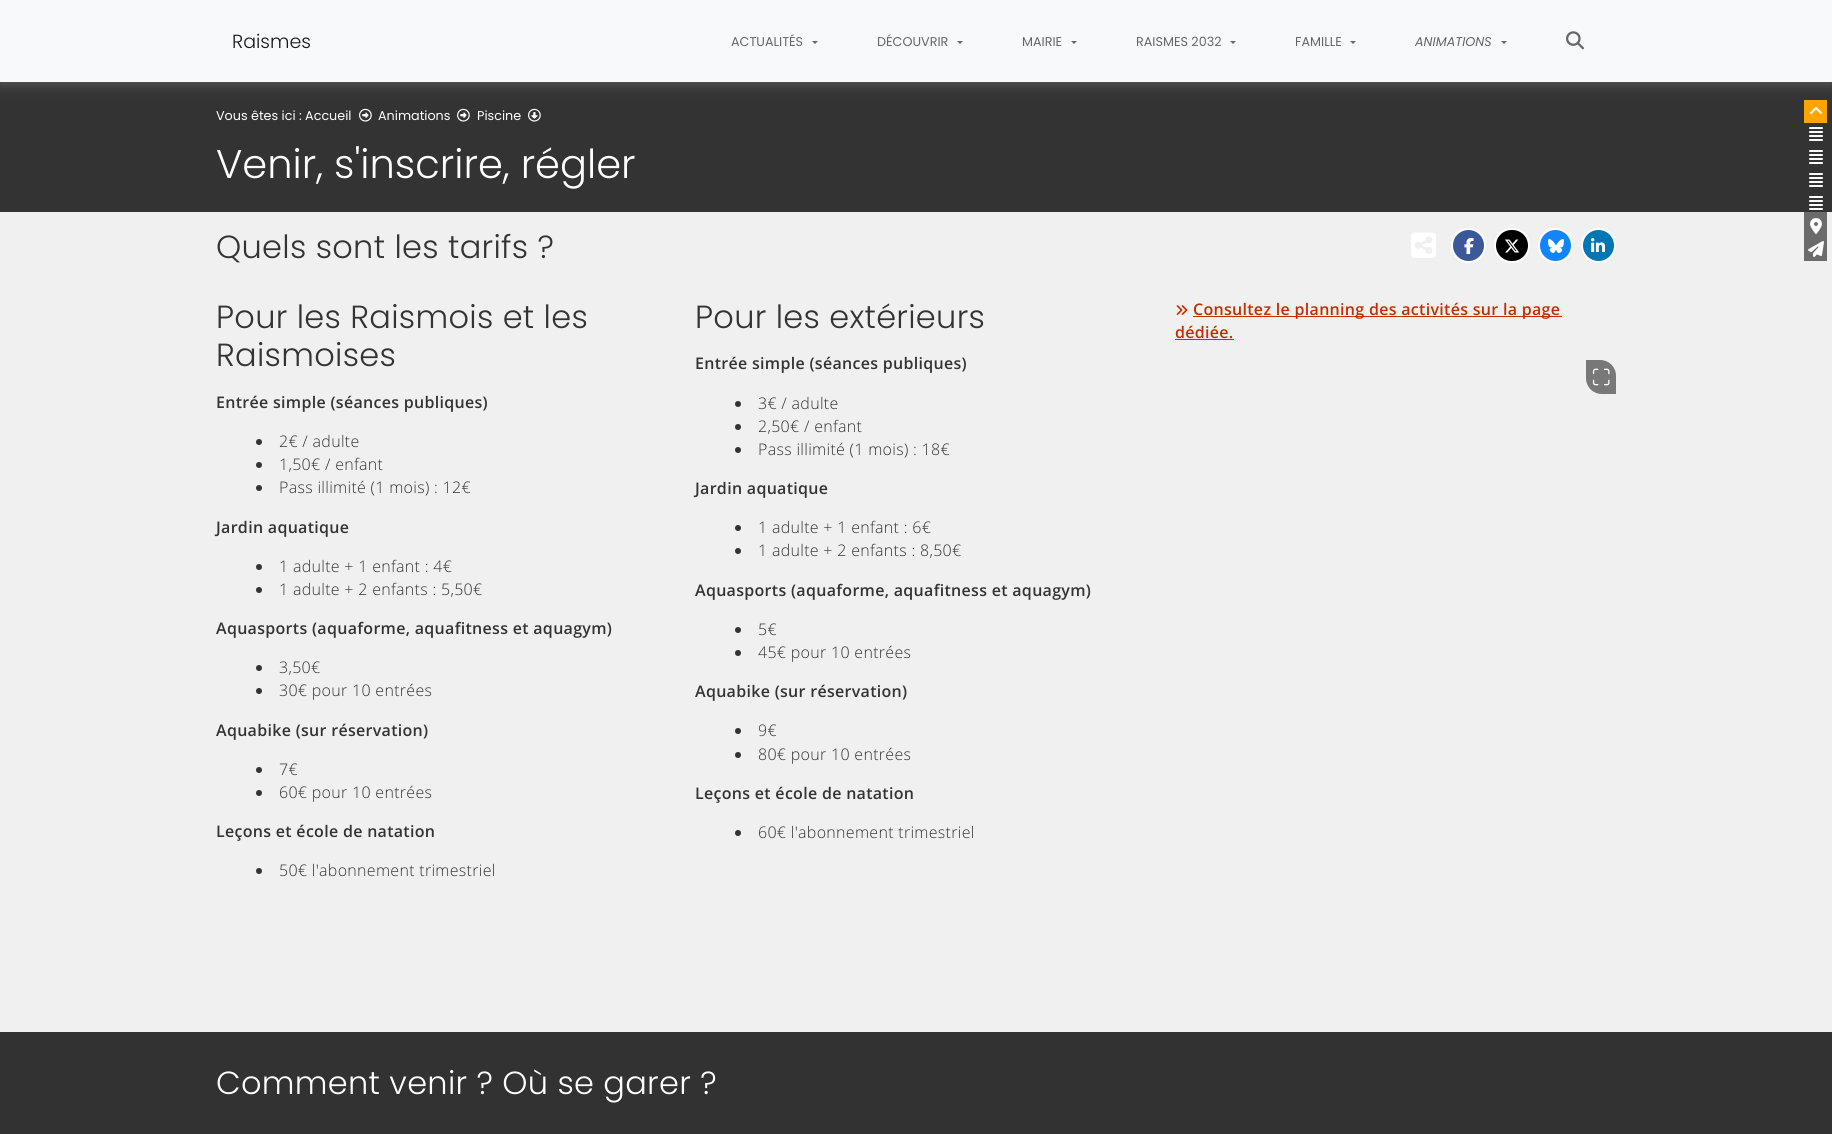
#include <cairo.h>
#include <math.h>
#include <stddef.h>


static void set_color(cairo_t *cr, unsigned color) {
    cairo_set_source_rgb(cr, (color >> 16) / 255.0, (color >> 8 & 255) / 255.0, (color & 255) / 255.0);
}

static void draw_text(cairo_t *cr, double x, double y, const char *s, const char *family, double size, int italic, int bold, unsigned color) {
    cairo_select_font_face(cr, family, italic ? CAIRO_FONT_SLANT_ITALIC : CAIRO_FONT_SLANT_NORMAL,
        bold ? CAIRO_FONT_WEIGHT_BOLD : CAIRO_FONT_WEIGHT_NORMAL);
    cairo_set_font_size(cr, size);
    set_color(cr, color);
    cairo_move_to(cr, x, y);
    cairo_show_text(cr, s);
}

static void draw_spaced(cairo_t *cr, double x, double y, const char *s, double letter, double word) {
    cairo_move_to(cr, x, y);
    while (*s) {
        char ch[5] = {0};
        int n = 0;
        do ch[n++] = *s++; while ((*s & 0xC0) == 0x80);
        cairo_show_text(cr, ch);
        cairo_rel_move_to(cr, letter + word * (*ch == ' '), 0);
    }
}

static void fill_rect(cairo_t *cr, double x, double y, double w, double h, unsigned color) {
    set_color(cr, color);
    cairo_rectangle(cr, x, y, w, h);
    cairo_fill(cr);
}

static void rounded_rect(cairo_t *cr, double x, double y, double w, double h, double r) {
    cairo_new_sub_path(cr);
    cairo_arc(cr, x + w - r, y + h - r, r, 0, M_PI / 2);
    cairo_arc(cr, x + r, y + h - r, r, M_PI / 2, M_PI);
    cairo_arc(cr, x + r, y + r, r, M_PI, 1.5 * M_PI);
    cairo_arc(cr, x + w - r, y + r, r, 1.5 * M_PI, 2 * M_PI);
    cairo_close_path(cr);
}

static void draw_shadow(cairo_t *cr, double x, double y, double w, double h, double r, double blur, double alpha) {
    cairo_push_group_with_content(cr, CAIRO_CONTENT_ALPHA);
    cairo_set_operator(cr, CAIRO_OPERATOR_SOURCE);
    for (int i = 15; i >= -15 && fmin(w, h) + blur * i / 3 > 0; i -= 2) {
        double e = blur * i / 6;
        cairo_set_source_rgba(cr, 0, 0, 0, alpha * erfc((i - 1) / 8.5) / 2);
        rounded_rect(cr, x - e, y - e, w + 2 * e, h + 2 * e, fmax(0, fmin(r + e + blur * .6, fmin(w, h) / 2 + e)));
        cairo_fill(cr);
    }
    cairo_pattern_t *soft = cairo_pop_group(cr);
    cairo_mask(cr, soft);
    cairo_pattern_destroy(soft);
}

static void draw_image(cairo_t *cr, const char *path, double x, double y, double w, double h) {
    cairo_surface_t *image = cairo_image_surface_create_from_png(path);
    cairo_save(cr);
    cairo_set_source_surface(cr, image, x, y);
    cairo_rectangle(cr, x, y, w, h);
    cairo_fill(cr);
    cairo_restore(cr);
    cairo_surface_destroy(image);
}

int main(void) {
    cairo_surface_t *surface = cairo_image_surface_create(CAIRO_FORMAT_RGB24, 1832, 1134);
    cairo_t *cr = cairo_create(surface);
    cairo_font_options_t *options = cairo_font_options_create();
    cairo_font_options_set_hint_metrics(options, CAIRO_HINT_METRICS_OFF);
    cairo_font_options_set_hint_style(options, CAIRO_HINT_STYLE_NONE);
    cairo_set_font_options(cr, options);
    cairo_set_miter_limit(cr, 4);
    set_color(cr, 0xF0F0F0);
    cairo_paint(cr);
    fill_rect(cr, 1804, 212, 23, 49, 0x6B6B6B);
    fill_rect(cr, 0, 82, 1832, 130, 0x333333);
    fill_rect(cr, 1804, 100, 23, 23, 0xFFA500);
    set_color(cr, 0x666666);
    draw_shadow(cr, 0, 0, 1832, 82, 0, 7.5, 1);
    fill_rect(cr, 0, 0, 1832, 82, 0xF8F9FA);
    draw_text(cr, 232, 48, "Raismes", "Poppins Light", 19, 0, 0, 0x191919);
    draw_text(cr, 731, 46, "ACTUALITÉS", "Poppins", 12.75, 0, 0, 0x666666);
    cairo_new_path(cr);
    cairo_move_to(cr, 812, 41);
    cairo_line_to(cr, 818, 41);
    cairo_line_to(cr, 815, 44);
    cairo_close_path(cr);
    cairo_fill(cr);
    draw_text(cr, 877, 46, "DÉCOUVRIR", "Poppins", 12.75, 0, 0, 0x666666);
    cairo_new_path(cr);
    cairo_move_to(cr, 957, 41);
    cairo_line_to(cr, 963, 41);
    cairo_line_to(cr, 960, 44);
    cairo_close_path(cr);
    cairo_fill(cr);
    draw_text(cr, 1022, 46, "MAIRIE", "Poppins", 12.75, 0, 0, 0x666666);
    cairo_new_path(cr);
    cairo_move_to(cr, 1071, 41);
    cairo_line_to(cr, 1077, 41);
    cairo_line_to(cr, 1074, 44);
    cairo_close_path(cr);
    cairo_fill(cr);
    draw_text(cr, 1136, 46, "RAISMES 2032", "Poppins", 12.75, 0, 0, 0x666666);
    cairo_new_path(cr);
    cairo_move_to(cr, 1230, 41);
    cairo_line_to(cr, 1236, 41);
    cairo_line_to(cr, 1233, 44);
    cairo_close_path(cr);
    cairo_fill(cr);
    draw_text(cr, 1295, 46, "FAMILLE", "Poppins", 12.75, 0, 0, 0x666666);
    cairo_new_path(cr);
    cairo_move_to(cr, 1350, 41);
    cairo_line_to(cr, 1356, 41);
    cairo_line_to(cr, 1353, 44);
    cairo_close_path(cr);
    cairo_fill(cr);
    draw_text(cr, 1415, 46, "ANIMATIONS", "Poppins", 12.75, 1, 0, 0x666666);
    cairo_new_path(cr);
    cairo_move_to(cr, 1501, 41);
    cairo_line_to(cr, 1507, 41);
    cairo_line_to(cr, 1504, 44);
    cairo_close_path(cr);
    cairo_fill(cr);
    draw_image(cr, "assets/img1.png", 1566, 31, 18, 19);
    draw_text(cr, 216, 120, "Vous êtes ici : Accueil", "Poppins", 12.75, 0, 0, 0xFFFFFF);
    draw_image(cr, "assets/img2.png", 359, 108, 13, 14);
    draw_text(cr, 378, 120, "Animations", "Poppins", 12.75, 0, 0, 0xFFFFFF);
    draw_image(cr, "assets/img2.png", 457, 108, 13, 14);
    draw_text(cr, 477, 120, "Piscine", "Poppins", 12.75, 0, 0, 0xFFFFFF);
    draw_image(cr, "assets/img3.png", 528, 108, 13, 14);
    draw_text(cr, 216, 178, "Venir, s'inscrire, régler", "Poppins Light", 40, 0, 0, 0xFFFFFF);
    draw_image(cr, "assets/img4.png", 1411, 232, 25, 26);
    set_color(cr, 0x3B5998);
    cairo_arc(cr, 1468.5, 245.5, 16.5, 0, 2 * M_PI);
    cairo_fill_preserve(cr);
    set_color(cr, 0xFFFFFF);
    cairo_stroke(cr);
    draw_image(cr, "assets/img5.png", 1464, 238, 10, 16);
    set_color(cr, 0x000000);
    rounded_rect(cr, 1495, 229, 34, 33, 16.5);
    cairo_fill_preserve(cr);
    set_color(cr, 0xFFFFFF);
    cairo_stroke(cr);
    draw_image(cr, "assets/img6.png", 1505, 239, 15, 14);
    set_color(cr, 0x1185FE);
    cairo_arc(cr, 1555.5, 245.5, 16.5, 0, 2 * M_PI);
    cairo_fill_preserve(cr);
    set_color(cr, 0xFFFFFF);
    cairo_stroke(cr);
    draw_image(cr, "assets/img7.png", 1548, 239, 16, 14);
    set_color(cr, 0x0077B5);
    cairo_arc(cr, 1598.5, 245.5, 16.5, 0, 2 * M_PI);
    cairo_fill_preserve(cr);
    set_color(cr, 0xFFFFFF);
    cairo_stroke(cr);
    draw_image(cr, "assets/img8.png", 1591, 238, 14, 14);
    draw_image(cr, "assets/img9.png", 1810, 107, 12, 7);
    draw_image(cr, "assets/img10.png", 1809, 127, 14, 14);
    draw_image(cr, "assets/img10.png", 1809, 150, 14, 14);
    draw_image(cr, "assets/img10.png", 1809, 173, 14, 14);
    draw_image(cr, "assets/img10.png", 1809, 196, 14, 14);
    draw_image(cr, "assets/img11.png", 1810, 218, 12, 16);
    draw_image(cr, "assets/img12.png", 1808, 241, 16, 16);
    cairo_set_font_size(cr, 32);
    set_color(cr, 0x333333);
    draw_spaced(cr, 216, 258, "Quels sont les tarifs ?", 0.3, 0);
    draw_spaced(cr, 216, 328, "Pour les Raismois et les", 0.3, 0);
    draw_spaced(cr, 216, 366, "Raismoises", 0.3, 0);
    cairo_select_font_face(cr, "Open Sans SemiBold", CAIRO_FONT_SLANT_NORMAL, CAIRO_FONT_WEIGHT_NORMAL);
    cairo_set_font_size(cr, 16);
    draw_spaced(cr, 216, 408, "Entrée simple (séances publiques)", 0.3, 0);
    cairo_new_path(cr);
    cairo_arc(cr, 259, 442, 3, 0, 2 * M_PI);
    cairo_fill(cr);
    cairo_select_font_face(cr, "Open Sans Light", CAIRO_FONT_SLANT_NORMAL, CAIRO_FONT_WEIGHT_NORMAL);
    draw_spaced(cr, 279, 447, "2€ / adulte", 0.3, 0);
    cairo_new_path(cr);
    cairo_arc(cr, 259, 465, 3, 0, 2 * M_PI);
    cairo_fill(cr);
    draw_spaced(cr, 279, 470, "1,50€ / enfant", 0.3, 0);
    cairo_new_path(cr);
    cairo_arc(cr, 259, 488, 3, 0, 2 * M_PI);
    cairo_fill(cr);
    draw_spaced(cr, 279, 493, "Pass illimité (1 mois) : 12€", 0.3, 0);
    cairo_select_font_face(cr, "Open Sans SemiBold", CAIRO_FONT_SLANT_NORMAL, CAIRO_FONT_WEIGHT_NORMAL);
    draw_spaced(cr, 216, 533, "Jardin aquatique", 0.3, 0);
    cairo_new_path(cr);
    cairo_arc(cr, 259, 567, 3, 0, 2 * M_PI);
    cairo_fill(cr);
    cairo_select_font_face(cr, "Open Sans Light", CAIRO_FONT_SLANT_NORMAL, CAIRO_FONT_WEIGHT_NORMAL);
    draw_spaced(cr, 279, 572, "1 adulte + 1 enfant : 4€", 0.3, 0);
    cairo_new_path(cr);
    cairo_arc(cr, 259, 590, 3, 0, 2 * M_PI);
    cairo_fill(cr);
    draw_spaced(cr, 279, 595, "1 adulte + 2 enfants : 5,50€", 0.3, 0);
    cairo_select_font_face(cr, "Open Sans SemiBold", CAIRO_FONT_SLANT_NORMAL, CAIRO_FONT_WEIGHT_NORMAL);
    draw_spaced(cr, 216, 634, "Aquasports (aquaforme, aquafitness et aquagym)", 0.3, 0);
    cairo_new_path(cr);
    cairo_arc(cr, 259, 668, 3, 0, 2 * M_PI);
    cairo_fill(cr);
    cairo_select_font_face(cr, "Open Sans Light", CAIRO_FONT_SLANT_NORMAL, CAIRO_FONT_WEIGHT_NORMAL);
    draw_spaced(cr, 279, 673, "3,50€", 0.3, 0);
    cairo_new_path(cr);
    cairo_arc(cr, 259, 691, 3, 0, 2 * M_PI);
    cairo_fill(cr);
    draw_spaced(cr, 279, 696, "30€ pour 10 entrées", 0.3, 0);
    cairo_select_font_face(cr, "Open Sans SemiBold", CAIRO_FONT_SLANT_NORMAL, CAIRO_FONT_WEIGHT_NORMAL);
    draw_spaced(cr, 216, 736, "Aquabike (sur réservation)", 0.3, 0);
    cairo_new_path(cr);
    cairo_arc(cr, 259, 770, 3, 0, 2 * M_PI);
    cairo_fill(cr);
    cairo_select_font_face(cr, "Open Sans Light", CAIRO_FONT_SLANT_NORMAL, CAIRO_FONT_WEIGHT_NORMAL);
    draw_spaced(cr, 279, 775, "7€", 0.3, 0);
    cairo_new_path(cr);
    cairo_arc(cr, 259, 793, 3, 0, 2 * M_PI);
    cairo_fill(cr);
    draw_spaced(cr, 279, 798, "60€ pour 10 entrées", 0.3, 0);
    cairo_select_font_face(cr, "Open Sans SemiBold", CAIRO_FONT_SLANT_NORMAL, CAIRO_FONT_WEIGHT_NORMAL);
    draw_spaced(cr, 216, 837, "Leçons et école de natation", 0.3, 0);
    cairo_new_path(cr);
    cairo_arc(cr, 259, 871, 3, 0, 2 * M_PI);
    cairo_fill(cr);
    cairo_select_font_face(cr, "Open Sans Light", CAIRO_FONT_SLANT_NORMAL, CAIRO_FONT_WEIGHT_NORMAL);
    draw_spaced(cr, 279, 876, "50€ l'abonnement trimestriel", 0.3, 0);
    cairo_select_font_face(cr, "Poppins Light", CAIRO_FONT_SLANT_NORMAL, CAIRO_FONT_WEIGHT_NORMAL);
    cairo_set_font_size(cr, 32);
    draw_spaced(cr, 695, 328, "Pour les extérieurs", 0.3, 0);
    cairo_select_font_face(cr, "Open Sans SemiBold", CAIRO_FONT_SLANT_NORMAL, CAIRO_FONT_WEIGHT_NORMAL);
    cairo_set_font_size(cr, 16);
    draw_spaced(cr, 695, 369, "Entrée simple (séances publiques)", 0.3, 0);
    cairo_new_path(cr);
    cairo_arc(cr, 738, 404, 3, 0, 2 * M_PI);
    cairo_fill(cr);
    cairo_select_font_face(cr, "Open Sans Light", CAIRO_FONT_SLANT_NORMAL, CAIRO_FONT_WEIGHT_NORMAL);
    draw_spaced(cr, 758, 409, "3€ / adulte", 0.3, 0);
    cairo_new_path(cr);
    cairo_arc(cr, 738, 427, 3, 0, 2 * M_PI);
    cairo_fill(cr);
    draw_spaced(cr, 758, 432, "2,50€ / enfant", 0.3, 0);
    cairo_new_path(cr);
    cairo_arc(cr, 738, 450, 3, 0, 2 * M_PI);
    cairo_fill(cr);
    draw_spaced(cr, 758, 455, "Pass illimité (1 mois) : 18€", 0.3, 0);
    cairo_select_font_face(cr, "Open Sans SemiBold", CAIRO_FONT_SLANT_NORMAL, CAIRO_FONT_WEIGHT_NORMAL);
    draw_spaced(cr, 695, 494, "Jardin aquatique", 0.3, 0);
    cairo_new_path(cr);
    cairo_arc(cr, 738, 528, 3, 0, 2 * M_PI);
    cairo_fill(cr);
    cairo_select_font_face(cr, "Open Sans Light", CAIRO_FONT_SLANT_NORMAL, CAIRO_FONT_WEIGHT_NORMAL);
    draw_spaced(cr, 758, 533, "1 adulte + 1 enfant : 6€", 0.3, 0);
    cairo_new_path(cr);
    cairo_arc(cr, 738, 551, 3, 0, 2 * M_PI);
    cairo_fill(cr);
    draw_spaced(cr, 758, 556, "1 adulte + 2 enfants : 8,50€", 0.3, 0);
    cairo_select_font_face(cr, "Open Sans SemiBold", CAIRO_FONT_SLANT_NORMAL, CAIRO_FONT_WEIGHT_NORMAL);
    draw_spaced(cr, 695, 596, "Aquasports (aquaforme, aquafitness et aquagym)", 0.3, 0);
    cairo_new_path(cr);
    cairo_arc(cr, 738, 630, 3, 0, 2 * M_PI);
    cairo_fill(cr);
    cairo_select_font_face(cr, "Open Sans Light", CAIRO_FONT_SLANT_NORMAL, CAIRO_FONT_WEIGHT_NORMAL);
    draw_spaced(cr, 758, 635, "5€", 0.3, 0);
    cairo_new_path(cr);
    cairo_arc(cr, 738, 653, 3, 0, 2 * M_PI);
    cairo_fill(cr);
    draw_spaced(cr, 758, 658, "45€ pour 10 entrées", 0.3, 0);
    cairo_select_font_face(cr, "Open Sans SemiBold", CAIRO_FONT_SLANT_NORMAL, CAIRO_FONT_WEIGHT_NORMAL);
    draw_spaced(cr, 695, 697, "Aquabike (sur réservation)", 0.3, 0);
    cairo_new_path(cr);
    cairo_arc(cr, 738, 731, 3, 0, 2 * M_PI);
    cairo_fill(cr);
    cairo_select_font_face(cr, "Open Sans Light", CAIRO_FONT_SLANT_NORMAL, CAIRO_FONT_WEIGHT_NORMAL);
    draw_spaced(cr, 758, 736, "9€", 0.3, 0);
    cairo_new_path(cr);
    cairo_arc(cr, 738, 755, 3, 0, 2 * M_PI);
    cairo_fill(cr);
    draw_spaced(cr, 758, 760, "80€ pour 10 entrées", 0.3, 0);
    cairo_select_font_face(cr, "Open Sans SemiBold", CAIRO_FONT_SLANT_NORMAL, CAIRO_FONT_WEIGHT_NORMAL);
    draw_spaced(cr, 695, 799, "Leçons et école de natation", 0.3, 0);
    cairo_new_path(cr);
    cairo_arc(cr, 738, 833, 3, 0, 2 * M_PI);
    cairo_fill(cr);
    cairo_select_font_face(cr, "Open Sans Light", CAIRO_FONT_SLANT_NORMAL, CAIRO_FONT_WEIGHT_NORMAL);
    draw_spaced(cr, 758, 838, "60€ l'abonnement trimestriel", 0.3, 0);
    draw_image(cr, "assets/img13.png", 1176, 305, 12, 10);
    fill_rect(cr, 1193, 316, 369, 1, 0xC32E00);
    cairo_select_font_face(cr, "Open Sans SemiBold", CAIRO_FONT_SLANT_NORMAL, CAIRO_FONT_WEIGHT_NORMAL);
    draw_spaced(cr, 1193, 315, "Consultez le planning des activités sur la page", 0.3, 0);
    draw_spaced(cr, 1175, 338, "dédiée.", 0.3, 0);
    fill_rect(cr, 1175, 339, 59, 1, 0xC32E00);
    set_color(cr, 0x787878);
    cairo_new_path(cr);
    cairo_move_to(cr, 1586, 360);
    cairo_line_to(cr, 1600, 360);
    cairo_curve_to(cr, 1609, 360, 1616, 367, 1616, 376);
    cairo_line_to(cr, 1616, 394);
    cairo_line_to(cr, 1602, 394);
    cairo_curve_to(cr, 1593, 394, 1586, 387, 1586, 378);
    cairo_close_path(cr);
    cairo_fill(cr);
    draw_image(cr, "assets/img14.png", 1592, 368, 18, 18);
    fill_rect(cr, 0, 1032, 1832, 102, 0x323232);
    cairo_select_font_face(cr, "Poppins Light", CAIRO_FONT_SLANT_NORMAL, CAIRO_FONT_WEIGHT_NORMAL);
    cairo_set_font_size(cr, 32);
    set_color(cr, 0xFFFFFF);
    draw_spaced(cr, 216, 1094, "Comment venir ? Où se garer ?", 0.3, 0);
    cairo_surface_write_to_png(surface, "output.png");
    cairo_font_options_destroy(options);
    cairo_destroy(cr);
    cairo_surface_destroy(surface);
    return 0;
}
